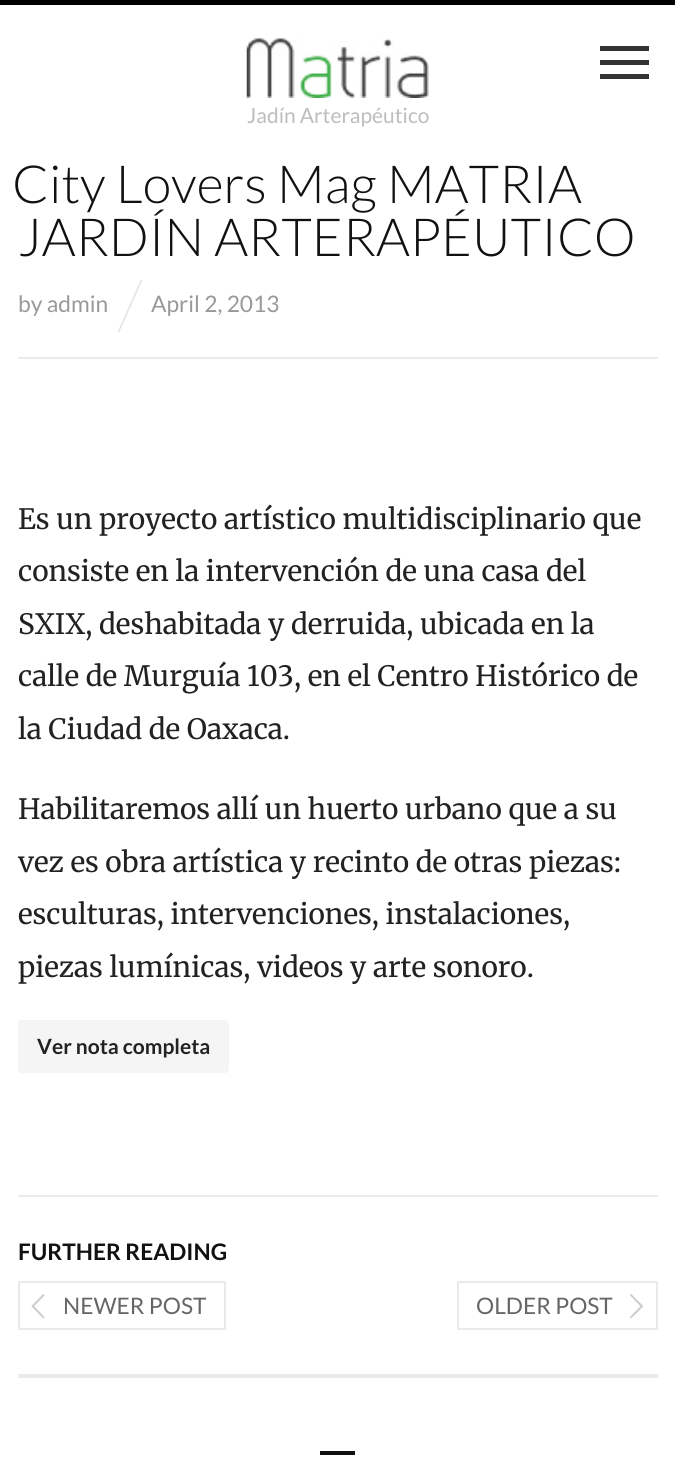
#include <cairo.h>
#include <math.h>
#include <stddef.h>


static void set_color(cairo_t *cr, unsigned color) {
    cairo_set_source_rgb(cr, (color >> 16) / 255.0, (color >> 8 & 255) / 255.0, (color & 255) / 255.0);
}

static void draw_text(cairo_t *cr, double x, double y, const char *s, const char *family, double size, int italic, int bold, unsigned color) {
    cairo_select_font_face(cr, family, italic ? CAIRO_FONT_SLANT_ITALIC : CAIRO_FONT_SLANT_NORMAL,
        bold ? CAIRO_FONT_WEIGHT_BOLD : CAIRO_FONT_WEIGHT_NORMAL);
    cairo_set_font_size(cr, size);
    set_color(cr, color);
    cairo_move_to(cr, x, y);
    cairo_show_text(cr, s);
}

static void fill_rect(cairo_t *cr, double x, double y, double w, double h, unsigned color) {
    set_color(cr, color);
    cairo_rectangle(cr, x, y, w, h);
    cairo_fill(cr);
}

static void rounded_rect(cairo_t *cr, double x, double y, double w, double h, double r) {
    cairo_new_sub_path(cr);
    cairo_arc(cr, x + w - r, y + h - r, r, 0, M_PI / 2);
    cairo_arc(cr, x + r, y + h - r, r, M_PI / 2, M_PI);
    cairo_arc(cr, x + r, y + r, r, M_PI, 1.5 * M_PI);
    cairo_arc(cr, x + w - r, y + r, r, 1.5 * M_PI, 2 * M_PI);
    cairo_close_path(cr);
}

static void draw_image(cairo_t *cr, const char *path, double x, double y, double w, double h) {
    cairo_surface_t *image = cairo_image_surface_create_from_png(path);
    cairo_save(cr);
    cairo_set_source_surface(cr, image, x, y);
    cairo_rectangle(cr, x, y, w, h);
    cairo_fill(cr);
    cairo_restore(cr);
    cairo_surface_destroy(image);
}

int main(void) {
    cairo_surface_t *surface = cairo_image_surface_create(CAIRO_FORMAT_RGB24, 675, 1479);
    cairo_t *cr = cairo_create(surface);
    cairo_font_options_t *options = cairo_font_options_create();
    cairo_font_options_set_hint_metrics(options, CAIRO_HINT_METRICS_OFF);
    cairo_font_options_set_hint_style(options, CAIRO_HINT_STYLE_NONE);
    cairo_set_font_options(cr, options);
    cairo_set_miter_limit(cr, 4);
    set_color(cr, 0xFFFFFF);
    cairo_paint(cr);
    fill_rect(cr, 600, 60, 49, 5, 0x333333);
    fill_rect(cr, 600, 46, 49, 5, 0x333333);
    fill_rect(cr, 600, 74, 49, 5, 0x333333);
    fill_rect(cr, 0, 0, 675, 5, 0x000000);
    draw_image(cr, "assets/img1.png", 246, 38, 183, 60);
    draw_text(cr, 247, 123, "Jadín Arterapéutico", "Lato", 21, 0, 0, 0xBDBDBD);
    fill_rect(cr, 18, 357, 640, 2, 0xEAEAEA);
    draw_text(cr, 12, 203, "City Lovers Mag MATRIA", "Lato Light", 52.5, 0, 0, 0x111111);
    draw_text(cr, 18, 256, "JARDÍN ARTERAPÉUTICO", "Lato Light", 52.5, 0, 0, 0x111111);
    draw_text(cr, 18, 312, "by admin", "Lato", 22.75, 0, 0, 0x999999);
    draw_image(cr, "assets/img2.png", 117, 280, 26, 53);
    draw_text(cr, 151, 312, "April 2, 2013", "Lato", 22.75, 0, 0, 0x999999);
    draw_text(cr, 18, 529, "Es un proyecto artístico multidisciplinario que", "Merriweather Light", 28, 0, 0, 0x222222);
    draw_text(cr, 18, 581, "consiste en la intervención de una casa del", "Merriweather Light", 28, 0, 0, 0x222222);
    draw_text(cr, 18, 634, "SXIX, deshabitada y derruida, ubicada en la", "Merriweather Light", 28, 0, 0, 0x222222);
    draw_text(cr, 18, 686, "calle de Murguía 103, en el Centro Histórico de", "Merriweather Light", 28, 0, 0, 0x222222);
    draw_text(cr, 18, 739, "la Ciudad de Oaxaca.", "Merriweather Light", 28, 0, 0, 0x222222);
    draw_text(cr, 18, 819, "Habilitaremos allí un huerto urbano que a su", "Merriweather Light", 28, 0, 0, 0x222222);
    draw_text(cr, 18, 872, "vez es obra artística y recinto de otras piezas:", "Merriweather Light", 28, 0, 0, 0x222222);
    draw_text(cr, 18, 924, "esculturas, intervenciones, instalaciones,", "Merriweather Light", 28, 0, 0, 0x222222);
    draw_text(cr, 18, 977, "piezas lumínicas, videos y arte sonoro.", "Merriweather Light", 28, 0, 0, 0x222222);
    set_color(cr, 0xF5F5F5);
    rounded_rect(cr, 18, 1020, 211, 53, 4);
    cairo_fill(cr);
    draw_text(cr, 37, 1054, "Ver nota completa", "Lato", 21, 0, 1, 0x222222);
    fill_rect(cr, 18, 1195, 640, 2, 0xEAEAEA);
    draw_text(cr, 18, 1260, "FURTHER READING", "Lato", 22.75, 0, 1, 0x111111);
    cairo_rectangle(cr, 19, 1282, 206, 47);
    set_color(cr, 0xEAEAEA);
    cairo_stroke(cr);
    draw_image(cr, "assets/img3.png", 31, 1294, 14, 25);
    draw_text(cr, 63, 1314, "NEWER POST", "Lato", 22.75, 0, 0, 0x666666);
    cairo_rectangle(cr, 458, 1282, 199, 47);
    set_color(cr, 0xEAEAEA);
    cairo_stroke(cr);
    draw_text(cr, 476, 1314, "OLDER POST", "Lato", 22.75, 0, 0, 0x666666);
    draw_image(cr, "assets/img4.png", 630, 1294, 13, 25);
    fill_rect(cr, 18, 1374, 640, 4, 0xEAEAEA);
    fill_rect(cr, 320, 1451, 35, 4, 0x111111);
    cairo_surface_write_to_png(surface, "output.png");
    cairo_font_options_destroy(options);
    cairo_destroy(cr);
    cairo_surface_destroy(surface);
    return 0;
}
